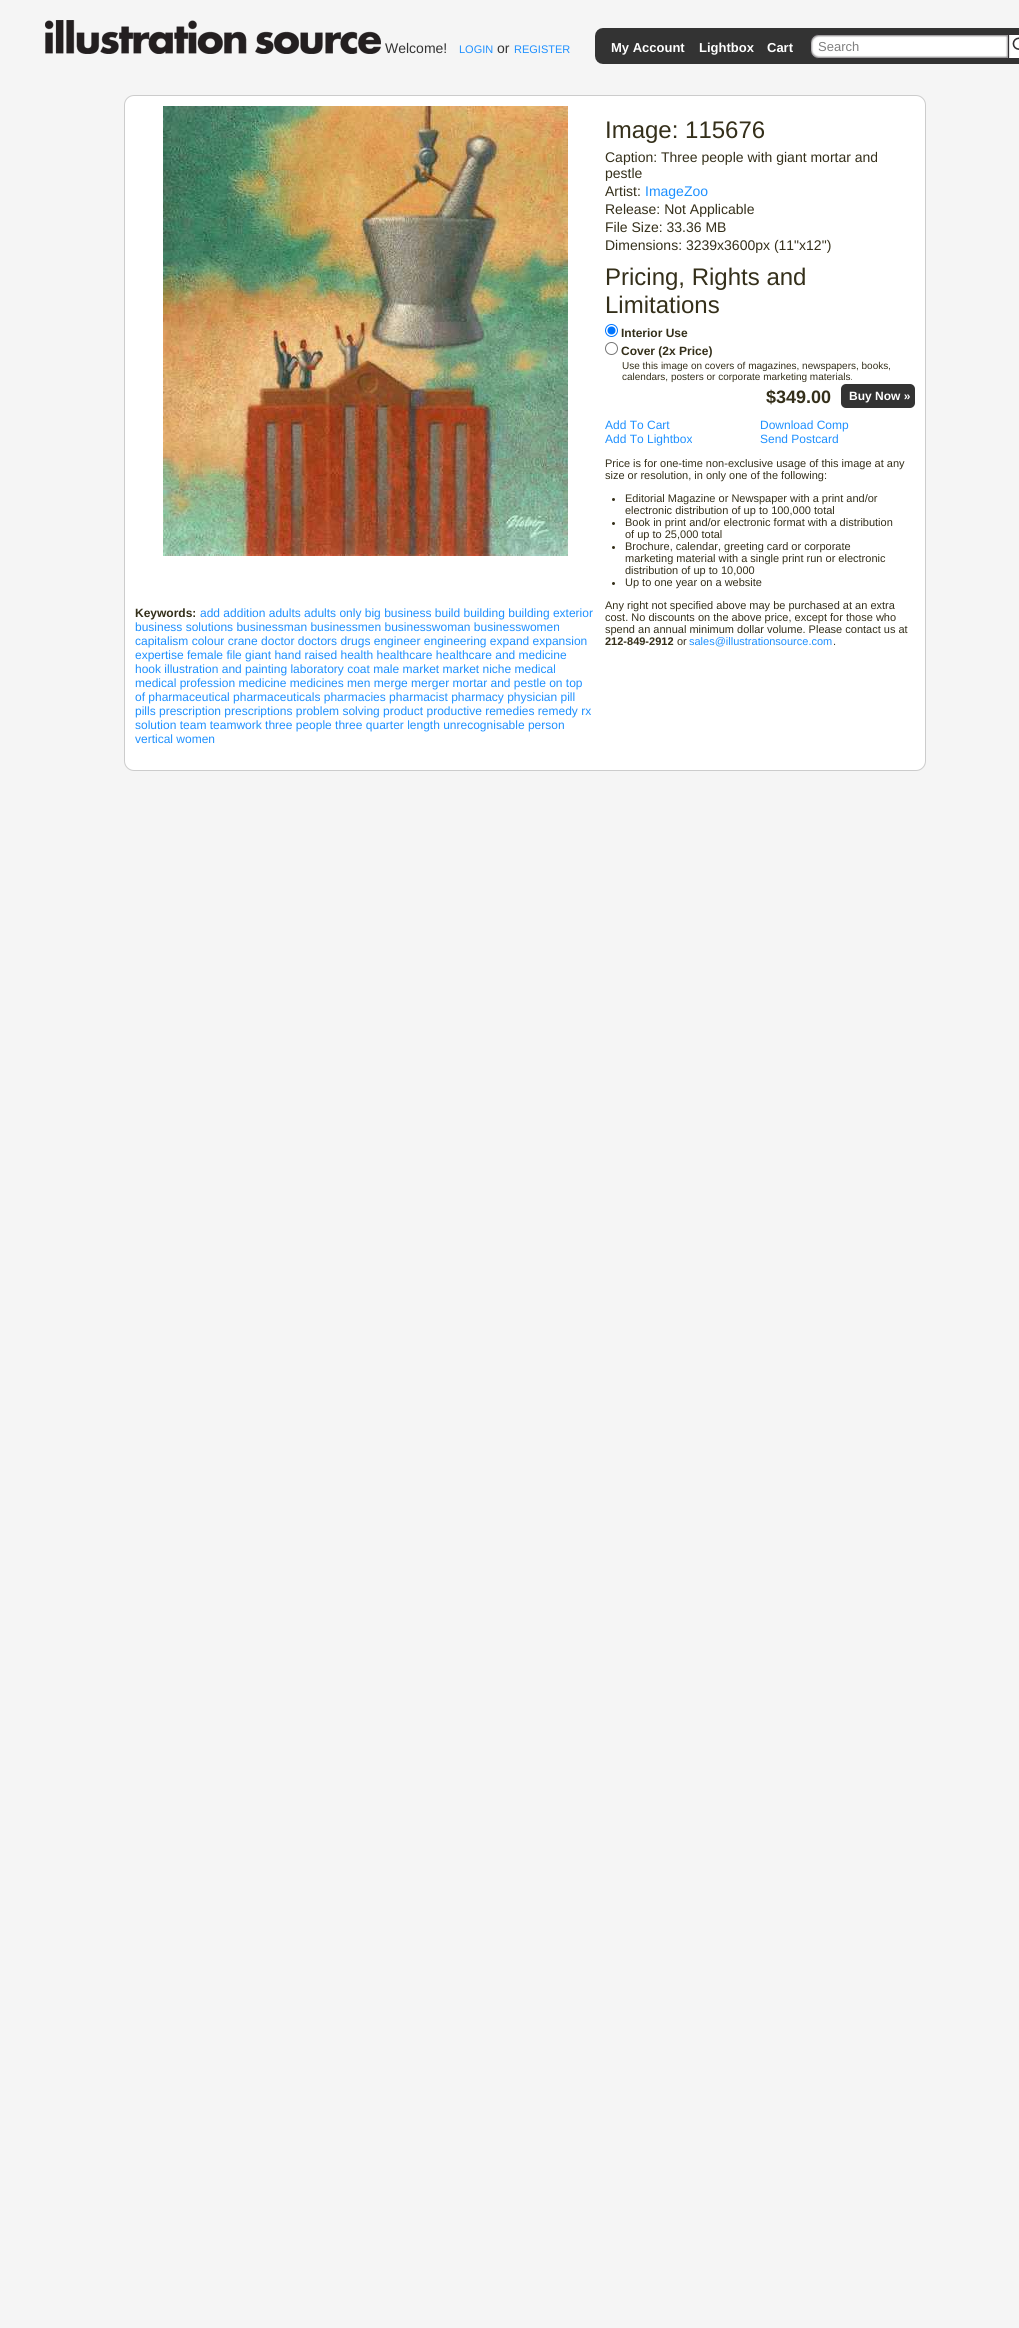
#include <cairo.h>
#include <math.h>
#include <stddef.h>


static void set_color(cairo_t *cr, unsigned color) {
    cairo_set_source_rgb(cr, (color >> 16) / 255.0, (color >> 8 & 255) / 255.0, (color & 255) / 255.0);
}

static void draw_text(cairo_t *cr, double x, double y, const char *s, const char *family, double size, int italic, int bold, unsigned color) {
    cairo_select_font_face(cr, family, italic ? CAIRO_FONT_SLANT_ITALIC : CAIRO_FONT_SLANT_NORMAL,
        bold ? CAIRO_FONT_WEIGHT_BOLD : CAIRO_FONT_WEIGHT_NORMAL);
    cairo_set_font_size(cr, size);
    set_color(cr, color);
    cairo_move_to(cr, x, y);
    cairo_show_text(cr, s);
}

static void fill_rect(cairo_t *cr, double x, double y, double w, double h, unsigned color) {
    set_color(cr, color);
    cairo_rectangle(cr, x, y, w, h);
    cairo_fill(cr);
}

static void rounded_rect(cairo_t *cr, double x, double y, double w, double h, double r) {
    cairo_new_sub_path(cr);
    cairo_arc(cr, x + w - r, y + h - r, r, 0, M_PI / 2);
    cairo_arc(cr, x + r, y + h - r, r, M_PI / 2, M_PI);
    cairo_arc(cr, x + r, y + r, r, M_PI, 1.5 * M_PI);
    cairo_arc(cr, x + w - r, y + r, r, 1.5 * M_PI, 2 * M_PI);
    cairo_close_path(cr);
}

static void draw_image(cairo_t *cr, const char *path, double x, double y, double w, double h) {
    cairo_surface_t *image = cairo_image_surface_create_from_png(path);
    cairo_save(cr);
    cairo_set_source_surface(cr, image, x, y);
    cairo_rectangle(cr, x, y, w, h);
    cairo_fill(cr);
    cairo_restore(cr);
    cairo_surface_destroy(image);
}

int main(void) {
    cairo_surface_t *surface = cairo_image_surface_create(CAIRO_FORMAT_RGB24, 1019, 2328);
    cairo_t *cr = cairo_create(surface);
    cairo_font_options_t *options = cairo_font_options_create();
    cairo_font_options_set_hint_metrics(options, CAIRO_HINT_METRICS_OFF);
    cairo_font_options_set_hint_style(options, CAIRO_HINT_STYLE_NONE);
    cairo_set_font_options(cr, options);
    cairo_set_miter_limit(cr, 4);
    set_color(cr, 0xF5F5F5);
    cairo_paint(cr);
    draw_image(cr, "assets/img1.png", 45, 20, 336, 34);
    draw_text(cr, 385, 53, "Welcome!", "Liberation Sans", 14, 0, 0, 0x333333);
    draw_text(cr, 459, 53, "LOGIN", "Liberation Sans", 11, 0, 0, 0x1E90FF);
    draw_text(cr, 497, 53, "or", "Liberation Sans", 14, 0, 0, 0x333333);
    draw_text(cr, 514, 53, "REGISTER", "Liberation Sans", 11, 0, 0, 0x1E90FF);
    fill_rect(cr, 611, 28, 408, 36, 0x333333);
    draw_image(cr, "assets/img2.png", 595, 28, 16, 36);
    draw_text(cr, 611, 52, "My Account", "Liberation Sans", 13, 0, 1, 0xFFFFFF);
    draw_text(cr, 699, 52, "Lightbox", "Liberation Sans", 13, 0, 1, 0xFFFFFF);
    draw_text(cr, 767, 52, "Cart", "Liberation Sans", 13, 0, 1, 0xFFFFFF);
    draw_image(cr, "assets/img3.png", 810, 34, 209, 25);
    draw_text(cr, 818, 51, "Search", "Liberation Sans", 13, 0, 0, 0x808080);
    set_color(cr, 0xFFFFFF);
    rounded_rect(cr, 124.5, 95.5, 801, 675, 9.5);
    cairo_fill_preserve(cr);
    set_color(cr, 0xCCCCCC);
    cairo_set_line_width(cr, 1);
    cairo_stroke(cr);
    draw_text(cr, 605, 138, "Image: 115676", "Liberation Sans", 24, 0, 0, 0x342F1A);
    draw_text(cr, 605, 162, "Caption: Three people with giant mortar and", "Liberation Sans", 14, 0, 0, 0x342F1A);
    draw_text(cr, 605, 178, "pestle", "Liberation Sans", 14, 0, 0, 0x342F1A);
    draw_text(cr, 605, 196, "Artist:", "Liberation Sans", 14, 0, 0, 0x342F1A);
    draw_text(cr, 645, 196, "ImageZoo", "Liberation Sans", 14, 0, 0, 0x1E90FF);
    draw_text(cr, 605, 214, "Release: Not Applicable", "Liberation Sans", 14, 0, 0, 0x342F1A);
    draw_text(cr, 605, 232, "File Size: 33.36 MB", "Liberation Sans", 14, 0, 0, 0x342F1A);
    draw_text(cr, 605, 250, "Dimensions: 3239x3600px (11\"x12\")", "Liberation Sans", 14, 0, 0, 0x342F1A);
    draw_text(cr, 605, 285, "Pricing, Rights and", "Liberation Sans", 24, 0, 0, 0x342F1A);
    draw_text(cr, 605, 313, "Limitations", "Liberation Sans", 24, 0, 0, 0x342F1A);
    cairo_new_path(cr);
    cairo_arc(cr, 611.5, 330.5, 6, 0, 2 * M_PI);
    set_color(cr, 0x0075FF);
    cairo_stroke(cr);
    cairo_arc(cr, 611.5, 330.5, 4, 0, 2 * M_PI);
    cairo_fill(cr);
    draw_text(cr, 621, 337, "Interior Use", "Liberation Sans", 12, 0, 1, 0x342F1A);
    cairo_new_path(cr);
    cairo_arc(cr, 611.5, 348.5, 6, 0, 2 * M_PI);
    set_color(cr, 0x767676);
    cairo_stroke(cr);
    draw_text(cr, 621, 355, "Cover (2x Price)", "Liberation Sans", 12, 0, 1, 0x342F1A);
    draw_text(cr, 622, 369, "Use this image on covers of magazines, newspapers, books,", "Liberation Sans", 10, 0, 0, 0x342F1A);
    draw_text(cr, 622, 380, "calendars, posters or corporate marketing materials.", "Liberation Sans", 10, 0, 0, 0x342F1A);
    draw_text(cr, 766, 403, "$349.00", "Liberation Sans", 18, 0, 1, 0x342F1A);
    set_color(cr, 0x333333);
    rounded_rect(cr, 841, 384, 74, 24, 5);
    cairo_fill(cr);
    draw_text(cr, 849, 400, "Buy Now »", "Liberation Sans", 12, 0, 1, 0xFFFFFF);
    draw_text(cr, 605, 429, "Add To Cart", "Liberation Sans", 12, 0, 0, 0x1E90FF);
    draw_text(cr, 760, 429, "Download Comp", "Liberation Sans", 12, 0, 0, 0x1E90FF);
    draw_text(cr, 605, 443, "Add To Lightbox", "Liberation Sans", 12, 0, 0, 0x1E90FF);
    draw_text(cr, 760, 443, "Send Postcard", "Liberation Sans", 12, 0, 0, 0x1E90FF);
    draw_text(cr, 605, 467, "Price is for one-time non-exclusive usage of this image at any", "Liberation Sans", 11, 0, 0, 0x342F1A);
    draw_text(cr, 605, 479, "size or resolution, in only one of the following:", "Liberation Sans", 11, 0, 0, 0x342F1A);
    cairo_new_path(cr);
    cairo_arc(cr, 613.5, 499.5, 1.5, 0, 2 * M_PI);
    cairo_fill(cr);
    draw_text(cr, 625, 502, "Editorial Magazine or Newspaper with a print and/or", "Liberation Sans", 11, 0, 0, 0x342F1A);
    draw_text(cr, 625, 514, "electronic distribution of up to 100,000 total", "Liberation Sans", 11, 0, 0, 0x342F1A);
    cairo_new_path(cr);
    cairo_arc(cr, 613.5, 523.5, 1.5, 0, 2 * M_PI);
    cairo_fill(cr);
    draw_text(cr, 625, 526, "Book in print and/or electronic format with a distribution", "Liberation Sans", 11, 0, 0, 0x342F1A);
    draw_text(cr, 625, 538, "of up to 25,000 total", "Liberation Sans", 11, 0, 0, 0x342F1A);
    cairo_new_path(cr);
    cairo_arc(cr, 613.5, 547.5, 1.5, 0, 2 * M_PI);
    cairo_fill(cr);
    draw_text(cr, 625, 550, "Brochure, calendar, greeting card or corporate", "Liberation Sans", 11, 0, 0, 0x342F1A);
    draw_text(cr, 625, 562, "marketing material with a single print run or electronic", "Liberation Sans", 11, 0, 0, 0x342F1A);
    draw_text(cr, 625, 574, "distribution of up to 10,000", "Liberation Sans", 11, 0, 0, 0x342F1A);
    cairo_new_path(cr);
    cairo_arc(cr, 613.5, 583.5, 1.5, 0, 2 * M_PI);
    cairo_fill(cr);
    draw_text(cr, 625, 586, "Up to one year on a website", "Liberation Sans", 11, 0, 0, 0x342F1A);
    draw_text(cr, 605, 609, "Any right not specified above may be purchased at an extra", "Liberation Sans", 11, 0, 0, 0x342F1A);
    draw_text(cr, 605, 621, "cost. No discounts on the above price, except for those who", "Liberation Sans", 11, 0, 0, 0x342F1A);
    draw_text(cr, 605, 633, "spend an annual minimum dollar volume. Please contact us at", "Liberation Sans", 11, 0, 0, 0x342F1A);
    draw_text(cr, 605, 645, "212-849-2912", "Liberation Sans", 11, 0, 1, 0x342F1A);
    draw_text(cr, 677, 645, "or", "Liberation Sans", 11, 0, 0, 0x342F1A);
    draw_text(cr, 689, 645, "sales@illustrationsource.com", "Liberation Sans", 11, 0, 0, 0x1E90FF);
    draw_text(cr, 833, 645, ".", "Liberation Sans", 11, 0, 0, 0x342F1A);
    draw_image(cr, "assets/img4.png", 163, 106, 405, 450);
    draw_text(cr, 135, 617, "Keywords:", "Liberation Sans", 12, 0, 1, 0x342F1A);
    draw_text(cr, 200, 617, "add addition adults adults only big business build building building exterior", "Liberation Sans", 12, 0, 0, 0x1E90FF);
    draw_text(cr, 135, 631, "business solutions businessman businessmen businesswoman businesswomen", "Liberation Sans", 12, 0, 0, 0x1E90FF);
    draw_text(cr, 135, 645, "capitalism colour crane doctor doctors drugs engineer engineering expand expansion", "Liberation Sans", 12, 0, 0, 0x1E90FF);
    draw_text(cr, 135, 659, "expertise female file giant hand raised health healthcare healthcare and medicine", "Liberation Sans", 12, 0, 0, 0x1E90FF);
    draw_text(cr, 135, 673, "hook illustration and painting laboratory coat male market market niche medical", "Liberation Sans", 12, 0, 0, 0x1E90FF);
    draw_text(cr, 135, 687, "medical profession medicine medicines men merge merger mortar and pestle on top", "Liberation Sans", 12, 0, 0, 0x1E90FF);
    draw_text(cr, 135, 701, "of pharmaceutical pharmaceuticals pharmacies pharmacist pharmacy physician pill", "Liberation Sans", 12, 0, 0, 0x1E90FF);
    draw_text(cr, 135, 715, "pills prescription prescriptions problem solving product productive remedies remedy rx", "Liberation Sans", 12, 0, 0, 0x1E90FF);
    draw_text(cr, 135, 729, "solution team teamwork three people three quarter length unrecognisable person", "Liberation Sans", 12, 0, 0, 0x1E90FF);
    draw_text(cr, 135, 743, "vertical women", "Liberation Sans", 12, 0, 0, 0x1E90FF);
    cairo_surface_write_to_png(surface, "output.png");
    cairo_font_options_destroy(options);
    cairo_destroy(cr);
    cairo_surface_destroy(surface);
    return 0;
}
